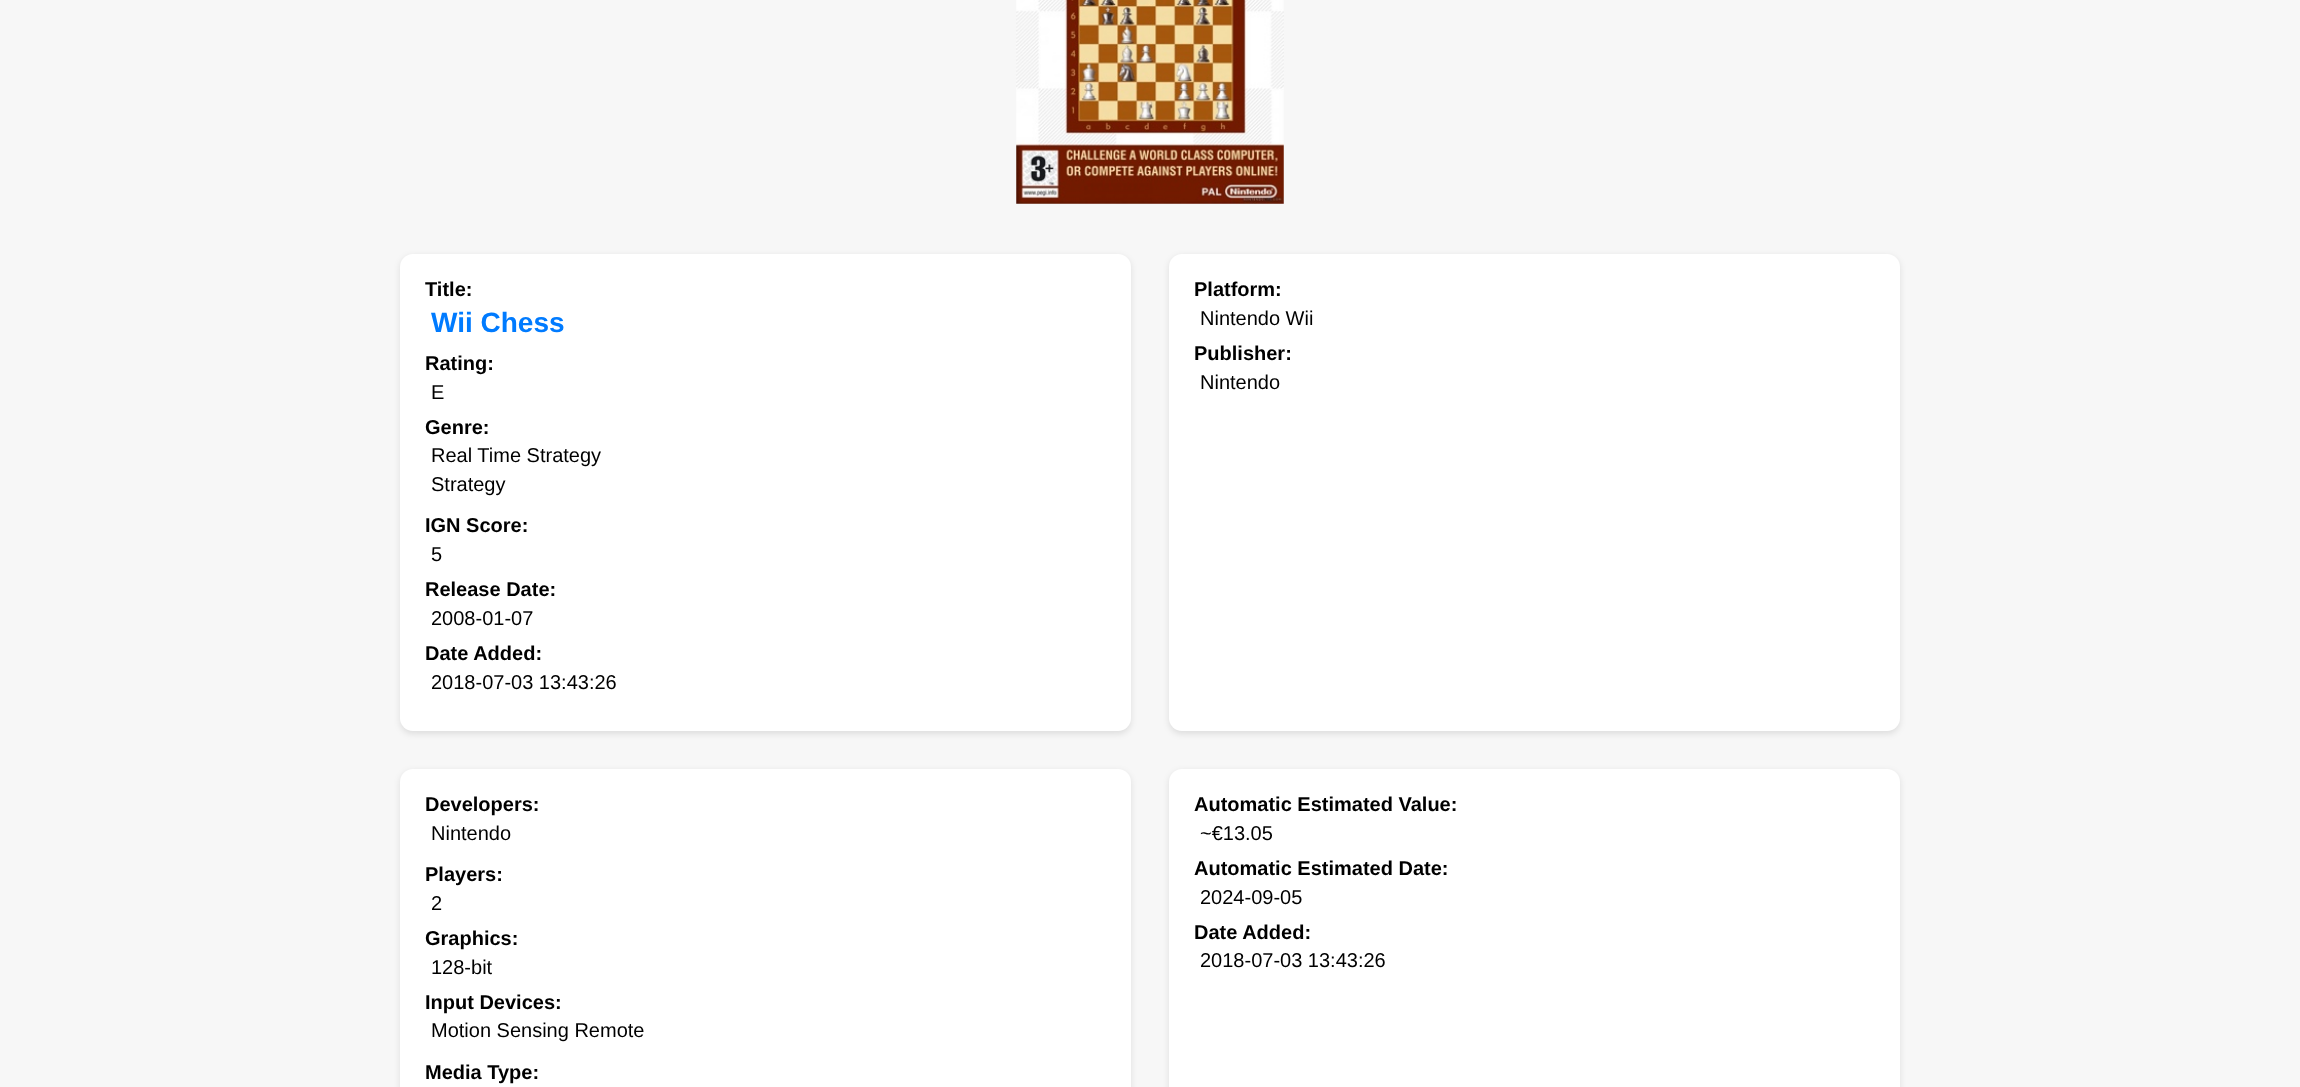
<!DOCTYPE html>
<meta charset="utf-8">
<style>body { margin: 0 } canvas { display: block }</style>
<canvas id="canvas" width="2300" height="1087"></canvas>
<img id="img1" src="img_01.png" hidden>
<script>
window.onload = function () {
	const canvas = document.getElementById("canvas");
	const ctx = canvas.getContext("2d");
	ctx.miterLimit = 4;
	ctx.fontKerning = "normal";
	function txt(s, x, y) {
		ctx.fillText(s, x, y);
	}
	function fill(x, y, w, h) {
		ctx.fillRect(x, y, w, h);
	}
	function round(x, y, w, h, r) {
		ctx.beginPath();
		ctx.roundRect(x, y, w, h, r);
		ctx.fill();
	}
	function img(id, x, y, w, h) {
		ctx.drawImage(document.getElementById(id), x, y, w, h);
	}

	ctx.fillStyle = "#F7F7F7";
	fill(0, 0, 2300, 1087);
	img("img1", 1016, 0, 268, 204);
	ctx.fillStyle = "rgba(0, 0, 0, 0.1)";
	ctx.filter = "blur(3px)";
	ctx.beginPath();
	ctx.roundRect(400, 256, 731, 478, 13);
	ctx.fill();
	ctx.filter = "none";
	ctx.fillStyle = "#FFFFFF";
	round(400, 254, 731, 477, 13);
	ctx.fillStyle = "rgba(0, 0, 0, 0.1)";
	ctx.filter = "blur(3px)";
	ctx.beginPath();
	ctx.roundRect(1169, 256, 731, 478, 13);
	ctx.fill();
	ctx.filter = "none";
	ctx.fillStyle = "#FFFFFF";
	round(1169, 254, 731, 477, 13);
	ctx.fillStyle = "rgba(0, 0, 0, 0.1)";
	ctx.filter = "blur(3px)";
	ctx.beginPath();
	ctx.roundRect(400, 771, 731, 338, 13);
	ctx.fill();
	ctx.filter = "none";
	ctx.fillStyle = "#FFFFFF";
	round(400, 769, 731, 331, 13);
	ctx.fillStyle = "rgba(0, 0, 0, 0.1)";
	ctx.filter = "blur(3px)";
	ctx.beginPath();
	ctx.roundRect(1169, 771, 731, 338, 13);
	ctx.fill();
	ctx.filter = "none";
	ctx.fillStyle = "#FFFFFF";
	round(1169, 769, 731, 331, 13);
	ctx.font = "bold 20px Liberation Sans";
	ctx.fillStyle = "#000000";
	txt("Title:", 425, 296);
	ctx.font = "bold 28px Liberation Sans";
	ctx.fillStyle = "#007BFF";
	txt("Wii Chess", 431, 332);
	ctx.font = "bold 20px Liberation Sans";
	ctx.fillStyle = "#000000";
	txt("Rating:", 425, 370);
	ctx.font = "20px Liberation Sans";
	txt("E", 431, 399);
	ctx.font = "bold 20px Liberation Sans";
	txt("Genre:", 425, 434);
	ctx.font = "20px Liberation Sans";
	txt("Real Time Strategy", 431, 462);
	txt("Strategy", 431, 491);
	ctx.font = "bold 20px Liberation Sans";
	txt("IGN Score:", 425, 532);
	ctx.font = "20px Liberation Sans";
	txt("5", 431, 561);
	ctx.font = "bold 20px Liberation Sans";
	txt("Release Date:", 425, 596);
	ctx.font = "20px Liberation Sans";
	txt("2008-01-07", 431, 625);
	ctx.font = "bold 20px Liberation Sans";
	txt("Date Added:", 425, 660);
	ctx.font = "20px Liberation Sans";
	txt("2018-07-03 13:43:26", 431, 689);
	ctx.font = "bold 20px Liberation Sans";
	txt("Platform:", 1194, 296);
	ctx.font = "20px Liberation Sans";
	txt("Nintendo Wii", 1200, 325);
	ctx.font = "bold 20px Liberation Sans";
	txt("Publisher:", 1194, 360);
	ctx.font = "20px Liberation Sans";
	txt("Nintendo", 1200, 389);
	ctx.font = "bold 20px Liberation Sans";
	txt("Developers:", 425, 811);
	ctx.font = "20px Liberation Sans";
	txt("Nintendo", 431, 840);
	ctx.font = "bold 20px Liberation Sans";
	txt("Players:", 425, 881);
	ctx.font = "20px Liberation Sans";
	txt("2", 431, 910);
	ctx.font = "bold 20px Liberation Sans";
	txt("Graphics:", 425, 945);
	ctx.font = "20px Liberation Sans";
	txt("128-bit", 431, 974);
	ctx.font = "bold 20px Liberation Sans";
	txt("Input Devices:", 425, 1009);
	ctx.font = "20px Liberation Sans";
	txt("Motion Sensing Remote", 431, 1037);
	ctx.font = "bold 20px Liberation Sans";
	txt("Media Type:", 425, 1079);
	txt("Automatic Estimated Value:", 1194, 811);
	ctx.font = "20px Liberation Sans";
	txt("~€13.05", 1200, 840);
	ctx.font = "bold 20px Liberation Sans";
	txt("Automatic Estimated Date:", 1194, 875);
	ctx.font = "20px Liberation Sans";
	txt("2024-09-05", 1200, 904);
	ctx.font = "bold 20px Liberation Sans";
	txt("Date Added:", 1194, 939);
	ctx.font = "20px Liberation Sans";
	txt("2018-07-03 13:43:26", 1200, 967);
};
</script>
